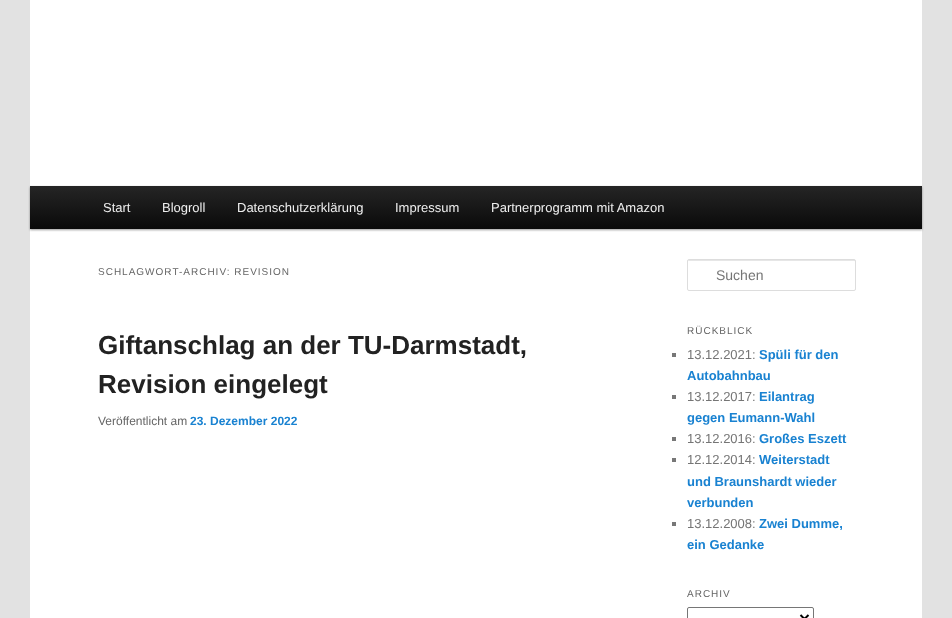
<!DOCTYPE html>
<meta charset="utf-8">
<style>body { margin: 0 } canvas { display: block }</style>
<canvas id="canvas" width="952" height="618"></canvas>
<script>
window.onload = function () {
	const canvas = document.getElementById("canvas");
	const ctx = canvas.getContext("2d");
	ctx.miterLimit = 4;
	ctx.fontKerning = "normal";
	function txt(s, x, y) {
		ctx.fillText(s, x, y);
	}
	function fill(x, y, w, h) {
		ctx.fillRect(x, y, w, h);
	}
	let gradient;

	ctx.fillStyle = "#E2E2E2";
	fill(0, 0, 952, 618);
	ctx.fillStyle = "#FFFFFF";
	fill(30, 0, 892, 618);
	ctx.fillStyle = "rgba(0, 0, 0, 0.4)";
	ctx.filter = "blur(1px)";
	ctx.beginPath();
	ctx.rect(30, 187, 892, 43);
	ctx.fill();
	ctx.filter = "none";
	gradient = ctx.createLinearGradient(476, 186, 476, 229);
	gradient.addColorStop(0, "#252525");
	gradient.addColorStop(1, "#0A0A0A");
	ctx.fillStyle = gradient;
	fill(30, 186, 892, 43);
	ctx.fillStyle = "#E6E6E6";
	ctx.beginPath();
	ctx.moveTo(689, 261);
	ctx.lineTo(854, 261);
	ctx.bezierCurveTo(855, 261, 855, 261, 855, 262);
	ctx.lineTo(855, 260);
	ctx.lineTo(689, 260);
	ctx.bezierCurveTo(688, 260, 688, 261, 688, 262);
	ctx.bezierCurveTo(688, 261, 688, 261, 689, 261);
	ctx.closePath();
	ctx.fill();
	ctx.beginPath();
	ctx.roundRect(687.5, 259.5, 168, 31, 1.5);
	ctx.strokeStyle = "#DDDDDD";
	ctx.stroke();
	ctx.fillStyle = "#777777";
	fill(672, 353, 4, 4);
	fill(672, 395, 4, 4);
	fill(672, 437, 4, 4);
	fill(672, 458, 4, 4);
	fill(672, 522, 4, 4);
	ctx.beginPath();
	ctx.roundRect(687.5, 607.5, 126, 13, 1.5);
	ctx.strokeStyle = "#767676";
	ctx.stroke();
	ctx.beginPath();
	ctx.moveTo(800.5, 615);
	ctx.lineTo(804.5, 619);
	ctx.lineTo(808.5, 615);
	ctx.strokeStyle = "#000000";
	ctx.lineWidth = 2;
	ctx.stroke();
	ctx.font = "13px Liberation Sans";
	ctx.fillStyle = "#EEEEEE";
	txt("Start", 103, 212);
	txt("Blogroll", 162, 212);
	txt("Datenschutzerklärung", 237, 212);
	txt("Impressum", 395, 212);
	txt("Partnerprogramm mit Amazon", 491, 212);
	ctx.letterSpacing = "1px";
	ctx.font = "10px Liberation Sans";
	ctx.fillStyle = "#666666";
	txt("SCHLAGWORT-ARCHIV: REVISION", 98, 275);
	ctx.letterSpacing = "0px";
	ctx.font = "bold 26px Liberation Sans";
	ctx.fillStyle = "#222222";
	txt("Giftanschlag an der TU-Darmstadt,", 98, 354);
	txt("Revision eingelegt", 98, 393);
	ctx.font = "12px Liberation Sans";
	ctx.fillStyle = "#666666";
	txt("Veröffentlicht am", 98, 425);
	ctx.font = "bold 12px Liberation Sans";
	ctx.fillStyle = "#1982D1";
	txt("23. Dezember 2022", 190, 425);
	ctx.font = "14px Liberation Sans";
	ctx.fillStyle = "#757575";
	txt("Suchen", 716, 280);
	ctx.letterSpacing = "1px";
	ctx.font = "10px Liberation Sans";
	ctx.fillStyle = "#666666";
	txt("RÜCKBLICK", 687, 334);
	ctx.letterSpacing = "0px";
	ctx.font = "13px Liberation Sans";
	ctx.fillStyle = "#757575";
	txt("13.12.2021:", 687, 359);
	ctx.font = "bold 13px Liberation Sans";
	ctx.fillStyle = "#1982D1";
	txt("Spüli für den", 759, 359);
	txt("Autobahnbau", 687, 380);
	ctx.font = "13px Liberation Sans";
	ctx.fillStyle = "#757575";
	txt("13.12.2017:", 687, 401);
	ctx.font = "bold 13px Liberation Sans";
	ctx.fillStyle = "#1982D1";
	txt("Eilantrag", 759, 401);
	txt("gegen Eumann-Wahl", 687, 422);
	ctx.font = "13px Liberation Sans";
	ctx.fillStyle = "#757575";
	txt("13.12.2016:", 687, 443);
	ctx.font = "bold 13px Liberation Sans";
	ctx.fillStyle = "#1982D1";
	txt("Großes Eszett", 759, 443);
	ctx.font = "13px Liberation Sans";
	ctx.fillStyle = "#757575";
	txt("12.12.2014:", 687, 464);
	ctx.font = "bold 13px Liberation Sans";
	ctx.fillStyle = "#1982D1";
	txt("Weiterstadt", 759, 464);
	txt("und Braunshardt wieder", 687, 486);
	txt("verbunden", 687, 507);
	ctx.font = "13px Liberation Sans";
	ctx.fillStyle = "#757575";
	txt("13.12.2008:", 687, 528);
	ctx.font = "bold 13px Liberation Sans";
	ctx.fillStyle = "#1982D1";
	txt("Zwei Dumme,", 759, 528);
	txt("ein Gedanke", 687, 549);
	ctx.letterSpacing = "1px";
	ctx.font = "10px Liberation Sans";
	ctx.fillStyle = "#666666";
	txt("ARCHIV", 687, 597);
};
</script>
